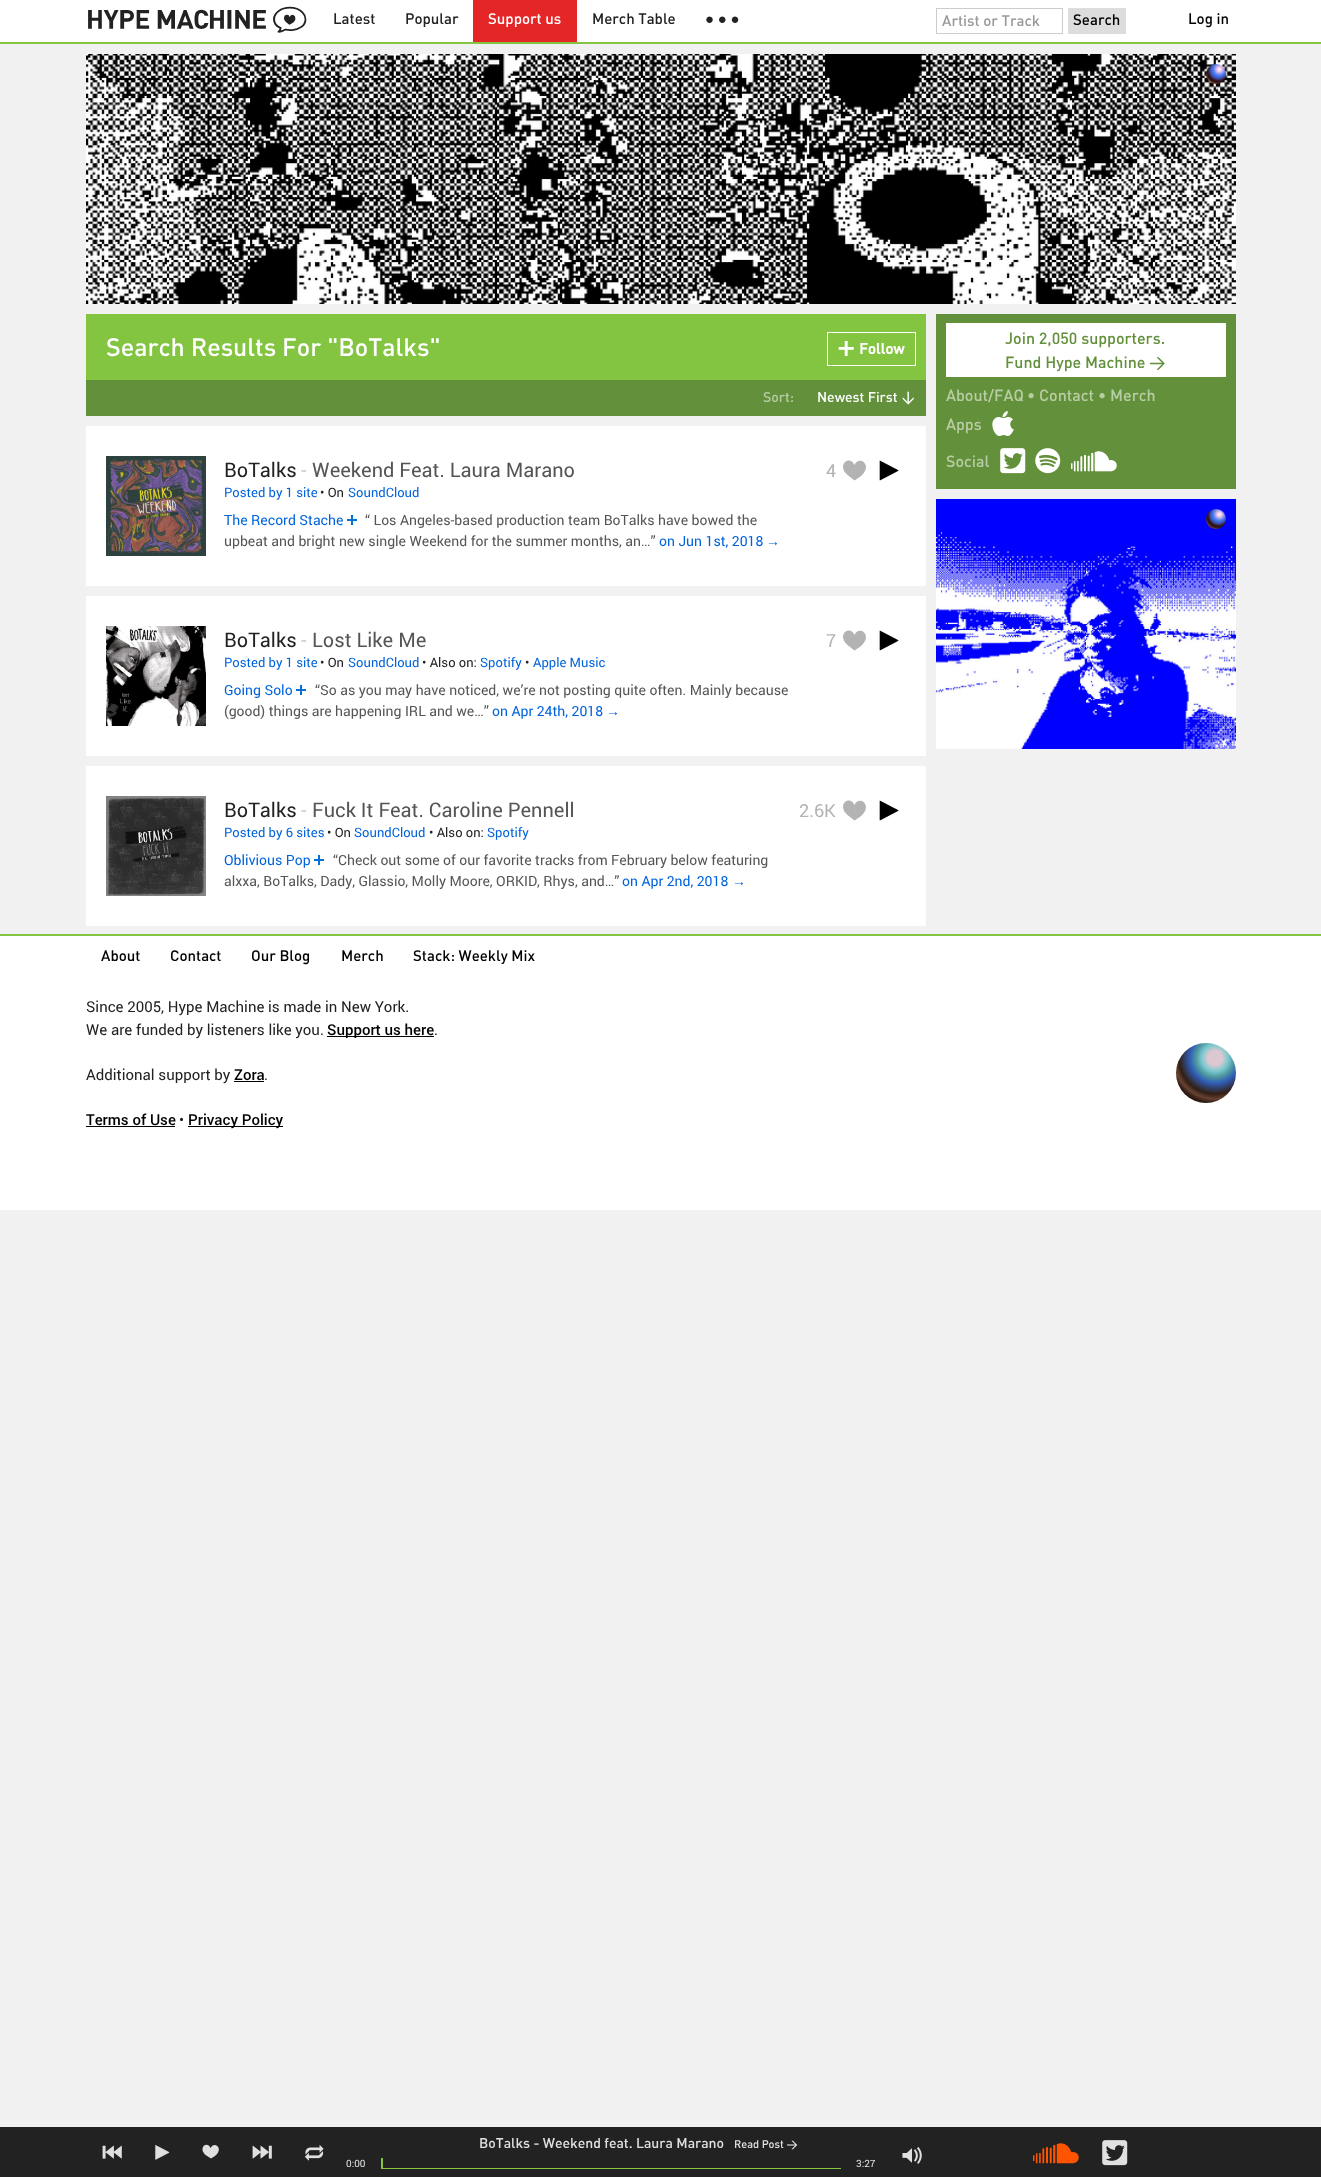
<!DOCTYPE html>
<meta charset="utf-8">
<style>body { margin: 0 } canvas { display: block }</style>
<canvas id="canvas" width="1321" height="2177"></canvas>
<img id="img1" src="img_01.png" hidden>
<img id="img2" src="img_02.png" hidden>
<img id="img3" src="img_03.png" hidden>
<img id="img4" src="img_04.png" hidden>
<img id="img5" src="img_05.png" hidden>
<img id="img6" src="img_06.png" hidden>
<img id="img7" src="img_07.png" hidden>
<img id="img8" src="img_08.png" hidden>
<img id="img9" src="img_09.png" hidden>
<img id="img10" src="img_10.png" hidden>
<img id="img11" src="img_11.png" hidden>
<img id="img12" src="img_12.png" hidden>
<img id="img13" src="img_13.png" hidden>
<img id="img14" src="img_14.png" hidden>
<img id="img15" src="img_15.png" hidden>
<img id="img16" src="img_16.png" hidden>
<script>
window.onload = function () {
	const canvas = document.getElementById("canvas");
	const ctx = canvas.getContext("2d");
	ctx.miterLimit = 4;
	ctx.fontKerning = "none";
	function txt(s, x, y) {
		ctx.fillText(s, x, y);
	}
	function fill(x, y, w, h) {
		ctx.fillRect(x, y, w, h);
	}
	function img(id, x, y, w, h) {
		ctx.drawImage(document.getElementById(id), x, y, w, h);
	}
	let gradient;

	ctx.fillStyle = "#F1F1F1";
	fill(0, 0, 1321, 2177);
	ctx.fillStyle = "#FFFFFF";
	fill(0, 0, 1321, 42);
	ctx.fillStyle = "#83C441";
	fill(0, 42, 1321, 2);
	ctx.fillStyle = "#E42626";
	fill(473, 0, 104, 42);
	ctx.strokeStyle = "#CCCCCC";
	ctx.strokeRect(936.5, 8.5, 126, 25);
	ctx.fillStyle = "#DDDDDD";
	fill(1068, 8, 58, 26);
	img("img1", 86, 54, 1150, 250);
	ctx.fillStyle = "#83C441";
	fill(86, 314, 840, 66);
	ctx.strokeStyle = "#FFFFFF";
	ctx.strokeRect(827.5, 332.5, 88, 33);
	ctx.fillStyle = "#63903A";
	fill(936, 314, 300, 175);
	ctx.fillStyle = "#FFFFFF";
	fill(946, 323, 280, 54);
	img("img2", 992, 411, 22, 26);
	img("img3", 1000, 448, 26, 26);
	img("img4", 1035, 448, 26, 26);
	img("img5", 936, 499, 300, 250);
	ctx.fillStyle = "#63903A";
	fill(86, 380, 840, 36);
	ctx.fillStyle = "#FFFFFF";
	fill(86, 426, 840, 160);
	img("img6", 106, 456, 100, 100);
	ctx.fillStyle = "#B3B3B3";
	ctx.beginPath();
	ctx.moveTo(854.5, 465);
	ctx.bezierCurveTo(859, 454.5, 874, 465.5, 860.5, 476.5);
	ctx.lineTo(854.5, 480.5);
	ctx.lineTo(847.5, 475);
	ctx.bezierCurveTo(836, 464.5, 850, 454.5, 854.5, 465);
	ctx.closePath();
	ctx.fill();
	img("img7", 879, 460, 20, 21);
	img("img8", 347, 515, 10, 10);
	ctx.fillStyle = "#FFFFFF";
	fill(86, 596, 840, 160);
	img("img9", 106, 626, 100, 100);
	ctx.fillStyle = "#B3B3B3";
	ctx.beginPath();
	ctx.moveTo(854.5, 635);
	ctx.bezierCurveTo(859, 624.5, 874, 635.5, 860.5, 646.5);
	ctx.lineTo(854.5, 650.5);
	ctx.lineTo(847.5, 645);
	ctx.bezierCurveTo(836, 634.5, 850, 624.5, 854.5, 635);
	ctx.closePath();
	ctx.fill();
	img("img7", 879, 630, 20, 21);
	img("img8", 296, 685, 10, 10);
	ctx.fillStyle = "#FFFFFF";
	fill(86, 766, 840, 160);
	img("img10", 106, 796, 100, 100);
	ctx.fillStyle = "#B3B3B3";
	ctx.beginPath();
	ctx.moveTo(854.5, 805);
	ctx.bezierCurveTo(859, 794.5, 874, 805.5, 860.5, 816.5);
	ctx.lineTo(854.5, 820.5);
	ctx.lineTo(847.5, 815);
	ctx.bezierCurveTo(836, 804.5, 850, 794.5, 854.5, 805);
	ctx.closePath();
	ctx.fill();
	img("img7", 879, 800, 20, 21);
	img("img8", 314, 855, 10, 10);
	ctx.fillStyle = "#FFFFFF";
	fill(0, 936, 1321, 274);
	ctx.fillStyle = "#83C441";
	fill(0, 934, 1321, 2);
	ctx.fillStyle = "#000000";
	fill(327, 1036, 107, 1);
	fill(234, 1081, 30, 1);
	gradient = ctx.createRadialGradient(1215, 1058, 0, 1215, 1058, 45);
	gradient.addColorStop(0.16, "#DCC8D0");
	gradient.addColorStop(0.3, "#78C8CF");
	gradient.addColorStop(0.43, "#4D959E");
	gradient.addColorStop(0.56, "#305EB9");
	gradient.addColorStop(0.8, "#311F12");
	gradient.addColorStop(0.91, "#684232");
	gradient.addColorStop(1, "#2D1C13");
	ctx.fillStyle = gradient;
	ctx.beginPath();
	ctx.arc(1206, 1073, 30, 0, Math.PI * 2);
	ctx.fill();
	ctx.fillStyle = "#000000";
	fill(86, 1126, 89, 1);
	fill(188, 1126, 95, 1);
	ctx.fillStyle = "#222222";
	fill(0, 2127, 1321, 50);
	img("img11", 102, 2145, 20, 14);
	img("img12", 155, 2145, 15, 15);
	ctx.fillStyle = "#E0E0E0";
	ctx.beginPath();
	ctx.moveTo(210.5, 2148);
	ctx.bezierCurveTo(214, 2140.5, 224.5, 2148, 215, 2156);
	ctx.lineTo(211, 2158.5);
	ctx.lineTo(205.5, 2155);
	ctx.bezierCurveTo(197.5, 2147.5, 207.5, 2140.5, 210.5, 2148);
	ctx.closePath();
	ctx.fill();
	img("img13", 252, 2145, 20, 14);
	img("img14", 304, 2144, 20, 17);
	img("img15", 1102, 2140, 26, 26);
	ctx.fillStyle = "#83C441";
	fill(381, 2168, 460, 1);
	fill(381, 2158, 2, 10);
	img("img16", 902, 2147, 20, 17);
	ctx.font = "38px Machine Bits";
	ctx.fillStyle = "#222222";
	txt("1", 86, 28);
	ctx.font = "500 15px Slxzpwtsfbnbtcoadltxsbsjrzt";
	txt("Latest", 333, 24);
	txt("Popular", 405, 24);
	ctx.fillStyle = "#FFFFFF";
	txt("Support us", 488, 24);
	ctx.fillStyle = "#222222";
	txt("Merch Table", 592, 24);
	ctx.font = "bold 15px Liberation Serif";
	txt("● ● ●", 705, 24);
	ctx.font = "500 15px Slxzpwtsfbnbtcoadltxsbsjrzt";
	ctx.fillStyle = "#999999";
	txt("Artist or Track", 942, 26);
	ctx.fillStyle = "#000000";
	txt("Search", 1073, 25);
	txt("Log in", 1188, 24);
	ctx.font = "500 25px Slxzpwtsfbnbtcoadltxsbsjrzt";
	ctx.fillStyle = "#FFFFFF";
	txt("Search Results For \"BoTalks\"", 106, 356);
	ctx.font = "15px Machine Bits";
	txt("+", 838, 354);
	ctx.font = "bold 15px Slxzpwtsfbnbtcoadltxsbsjrzt";
	txt("Follow", 859, 354);
	ctx.font = "500 16px Slxzpwtsfbnbtcoadltxsbsjrzt";
	ctx.fillStyle = "#63903A";
	txt("Join 2,050 supporters.", 1005, 344);
	txt("Fund Hype Machine →", 1005, 368);
	ctx.save();
	ctx.beginPath();
	ctx.rect(946, 389, 280, 16);
	ctx.clip();
	ctx.fillStyle = "#B9CDA5";
	txt("About/FAQ", 946, 401);
	ctx.restore();
	ctx.fillStyle = "#B9CDA5";
	txt("•", 1027, 401);
	txt("Contact", 1039, 401);
	txt("•", 1098, 401);
	txt("Merch", 1110, 401);
	txt("Apps", 946, 430);
	txt("Social", 946, 467);
	ctx.font = "20px Machine Bits";
	ctx.fillStyle = "#FFFFFF";
	txt("9", 1070, 469);
	ctx.font = "500 14px Slxzpwtsfbnbtcoadltxsbsjrzt";
	ctx.fillStyle = "#B9CDA5";
	txt("Sort:", 763, 402);
	ctx.fillStyle = "#FFFFFF";
	txt("Newest First ↓", 817, 402);
	ctx.font = "20px Roboto";
	ctx.fillStyle = "#222222";
	txt("BoTalks", 224, 477);
	ctx.fillStyle = "#CCCCCC";
	txt("-", 301, 477);
	ctx.fillStyle = "#555555";
	txt("Weekend Feat. Laura Marano", 312, 477);
	ctx.font = "18px Roboto";
	ctx.fillStyle = "#B3B3B3";
	txt("4", 826, 477);
	ctx.font = "13px Roboto";
	ctx.fillStyle = "#0063DC";
	txt("Posted by 1 site", 224, 497);
	ctx.fillStyle = "#222222";
	txt("• On", 320, 497);
	ctx.fillStyle = "#0063DC";
	txt("SoundCloud", 348, 497);
	ctx.font = "14px Roboto";
	txt("The Record Stache", 224, 525);
	ctx.fillStyle = "#555555";
	txt("“ Los Angeles-based production team BoTalks have bowed the", 365, 525);
	txt("upbeat and bright new single Weekend for the summer months, an…”", 224, 546);
	ctx.fillStyle = "#0063DC";
	txt("on Jun 1st, 2018", 659, 546);
	ctx.font = "14px Liberation Sans";
	txt("→", 766, 546);
	ctx.font = "20px Roboto";
	ctx.fillStyle = "#222222";
	txt("BoTalks", 224, 647);
	ctx.fillStyle = "#CCCCCC";
	txt("-", 301, 647);
	ctx.fillStyle = "#555555";
	txt("Lost Like Me", 312, 647);
	ctx.font = "18px Roboto";
	ctx.fillStyle = "#B3B3B3";
	txt("7", 826, 647);
	ctx.font = "13px Roboto";
	ctx.fillStyle = "#0063DC";
	txt("Posted by 1 site", 224, 667);
	ctx.fillStyle = "#222222";
	txt("• On", 320, 667);
	ctx.fillStyle = "#0063DC";
	txt("SoundCloud", 348, 667);
	ctx.fillStyle = "#222222";
	txt("• Also on:", 422, 667);
	ctx.fillStyle = "#0063DC";
	txt("Spotify", 480, 667);
	ctx.fillStyle = "#222222";
	txt("•", 525, 667);
	ctx.fillStyle = "#0063DC";
	txt("Apple Music", 533, 667);
	ctx.font = "14px Roboto";
	txt("Going Solo", 224, 695);
	ctx.fillStyle = "#555555";
	txt("“So as you may have noticed, we’re not posting quite often. Mainly because", 315, 695);
	txt("(good) things are happening IRL and we…”", 224, 716);
	ctx.fillStyle = "#0063DC";
	txt("on Apr 24th, 2018", 492, 716);
	ctx.font = "14px Liberation Sans";
	txt("→", 606, 716);
	ctx.font = "20px Roboto";
	ctx.fillStyle = "#222222";
	txt("BoTalks", 224, 817);
	ctx.fillStyle = "#CCCCCC";
	txt("-", 301, 817);
	ctx.fillStyle = "#555555";
	txt("Fuck It Feat. Caroline Pennell", 312, 817);
	ctx.font = "18px Roboto";
	ctx.fillStyle = "#B3B3B3";
	txt("2.6K", 799, 817);
	ctx.font = "13px Roboto";
	ctx.fillStyle = "#0063DC";
	txt("Posted by 6 sites", 224, 837);
	ctx.fillStyle = "#222222";
	txt("• On", 327, 837);
	ctx.fillStyle = "#0063DC";
	txt("SoundCloud", 354, 837);
	ctx.fillStyle = "#222222";
	txt("• Also on:", 429, 837);
	ctx.fillStyle = "#0063DC";
	txt("Spotify", 487, 837);
	ctx.font = "14px Roboto";
	txt("Oblivious Pop", 224, 865);
	ctx.fillStyle = "#555555";
	txt("“Check out some of our favorite tracks from February below featuring", 333, 865);
	txt("alxxa, BoTalks, Dady, Glassio, Molly Moore, ORKID, Rhys, and…”", 224, 886);
	ctx.fillStyle = "#0063DC";
	txt("on Apr 2nd, 2018", 622, 886);
	ctx.font = "14px Liberation Sans";
	txt("→", 732, 886);
	ctx.font = "500 15px Slxzpwtsfbnbtcoadltxsbsjrzt";
	ctx.fillStyle = "#000000";
	txt("About", 101, 961);
	txt("Contact", 170, 961);
	txt("Our Blog", 251, 961);
	txt("Merch", 341, 961);
	txt("Stack: Weekly Mix", 413, 961);
	ctx.font = "15px Roboto";
	ctx.fillStyle = "#222222";
	txt("Since 2005, Hype Machine is made in New York.", 86, 1012);
	txt("We are funded by listeners like you.", 86, 1035);
	ctx.font = "500 15px Roboto";
	ctx.fillStyle = "#000000";
	txt("Support us here", 327, 1035);
	ctx.font = "15px Roboto";
	ctx.fillStyle = "#222222";
	txt(".", 434, 1035);
	txt("Additional support by", 86, 1080);
	ctx.font = "500 15px Roboto";
	ctx.fillStyle = "#000000";
	txt("Zora", 234, 1080);
	ctx.font = "15px Roboto";
	ctx.fillStyle = "#222222";
	txt(".", 264, 1080);
	ctx.font = "500 15px Roboto";
	ctx.fillStyle = "#000000";
	txt("Terms of Use", 86, 1125);
	ctx.font = "15px Roboto";
	ctx.fillStyle = "#222222";
	txt("•", 179, 1125);
	ctx.font = "500 15px Roboto";
	ctx.fillStyle = "#000000";
	txt("Privacy Policy", 188, 1125);
	ctx.font = "500 14px Slxzpwtsfbnbtcoadltxsbsjrzt";
	ctx.fillStyle = "#E0E0E0";
	txt("BoTalks - Weekend feat. Laura Marano", 479, 2148);
	ctx.font = "500 11px Slxzpwtsfbnbtcoadltxsbsjrzt";
	txt("Read Post →", 734, 2148);
	ctx.font = "20px Machine Bits";
	ctx.fillStyle = "#FF5500";
	txt("9", 1032, 2161);
	ctx.font = "10px Roboto";
	ctx.fillStyle = "#E0E0E0";
	txt("0:00", 346, 2167);
	txt("3:27", 856, 2167);
};
</script>
